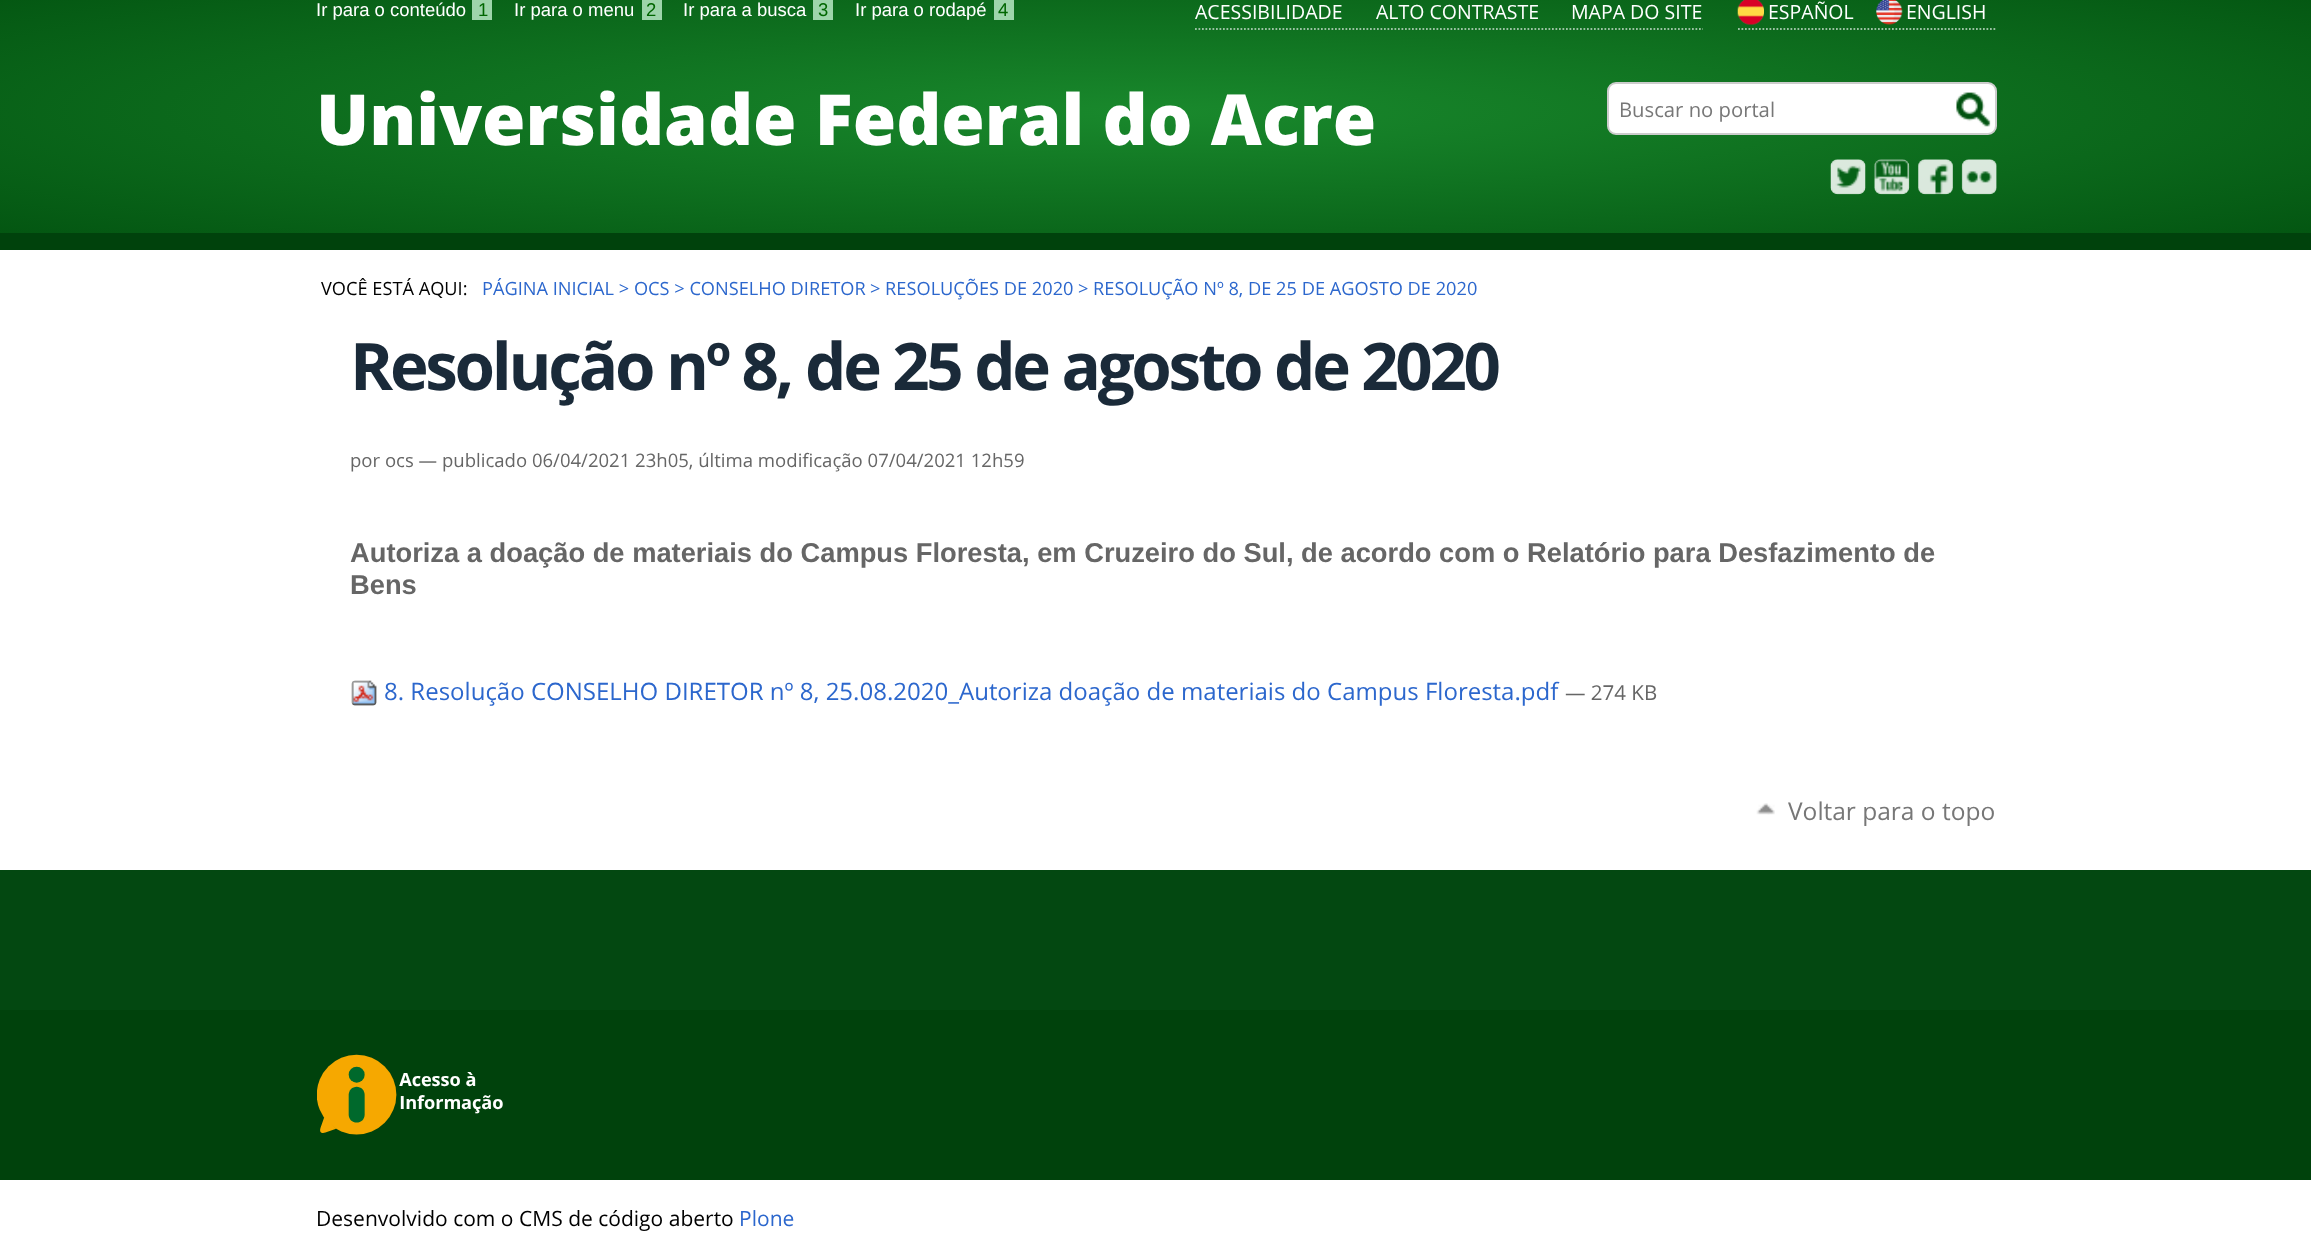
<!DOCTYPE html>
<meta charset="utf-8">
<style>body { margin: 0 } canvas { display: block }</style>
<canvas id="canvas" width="2311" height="1257"></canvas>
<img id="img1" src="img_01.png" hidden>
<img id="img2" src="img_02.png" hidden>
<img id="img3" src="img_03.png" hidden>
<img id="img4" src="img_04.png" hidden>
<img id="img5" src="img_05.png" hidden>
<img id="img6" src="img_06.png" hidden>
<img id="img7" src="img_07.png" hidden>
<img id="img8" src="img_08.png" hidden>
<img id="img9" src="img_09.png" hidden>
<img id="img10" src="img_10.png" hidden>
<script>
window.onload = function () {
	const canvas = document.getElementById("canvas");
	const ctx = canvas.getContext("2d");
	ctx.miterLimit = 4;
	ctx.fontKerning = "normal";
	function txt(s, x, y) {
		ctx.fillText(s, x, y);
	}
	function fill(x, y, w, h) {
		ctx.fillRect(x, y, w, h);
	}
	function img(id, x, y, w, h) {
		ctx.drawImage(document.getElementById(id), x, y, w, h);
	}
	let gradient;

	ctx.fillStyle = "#FFFFFF";
	fill(0, 0, 2311, 1257);
	gradient = ctx.createRadialGradient(1156, 934.29, 0, 1156, 934.29, 1635);
	gradient.addColorStop(0.01, "#19882C");
	gradient.addColorStop(1, "#025310");
	ctx.fillStyle = gradient;
	ctx.beginPath();
	ctx.rect(0, 0, 2311, 233);
	ctx.save();
	ctx.clip();
	ctx.scale(1, 196 / 1635);
	ctx.fillRect(0, 0, 2311, 10486);
	ctx.restore();
	ctx.fillStyle = "#9ED5AB";
	fill(472, 0, 20, 20);
	fill(642, 0, 20, 20);
	fill(813, 0, 20, 20);
	fill(994, 0, 20, 20);
	ctx.beginPath();
	ctx.moveTo(1195, 29);
	ctx.lineTo(1703, 29);
	ctx.strokeStyle = "#9BC2A3";
	ctx.lineWidth = 1.8;
	ctx.setLineDash([1.75, 1.75]);
	ctx.stroke();
	ctx.beginPath();
	ctx.moveTo(1738, 29);
	ctx.lineTo(1997, 29);
	ctx.stroke();
	img("img1", 1737, 0, 27, 25);
	img("img2", 1876, 0, 27, 25);
	ctx.fillStyle = "#FFFFFF";
	ctx.beginPath();
	ctx.roundRect(1608, 83, 388, 51, 8);
	ctx.fill();
	ctx.strokeStyle = "#CCCCCC";
	ctx.lineWidth = 2;
	ctx.setLineDash([]);
	ctx.stroke();
	img("img3", 1956, 92, 35, 35);
	img("img4", 1830, 159, 36, 36);
	img("img5", 1874, 159, 36, 36);
	img("img6", 1918, 159, 35, 36);
	img("img7", 1961, 159, 36, 36);
	ctx.fillStyle = "#00420C";
	fill(0, 233, 2311, 17);
	img("img8", 351, 680, 26, 26);
	img("img9", 1756, 803, 19, 12);
	ctx.fillStyle = "#034811";
	fill(0, 870, 2311, 140);
	ctx.fillStyle = "#00420C";
	fill(0, 1010, 2311, 170);
	img("img10", 317, 1054, 186, 81);
	ctx.font = "18.5px Liberation Sans";
	ctx.fillStyle = "#FFFFFF";
	txt("Ir para o conteúdo", 316, 16);
	ctx.fillStyle = "#006600";
	txt("1", 478, 16);
	ctx.fillStyle = "#FFFFFF";
	txt("Ir para o menu", 514, 16);
	ctx.fillStyle = "#006600";
	txt("2", 646, 16);
	ctx.fillStyle = "#FFFFFF";
	txt("Ir para a busca", 683, 16);
	ctx.fillStyle = "#006600";
	txt("3", 818, 16);
	ctx.fillStyle = "#FFFFFF";
	txt("Ir para o rodapé", 855, 16);
	ctx.fillStyle = "#006600";
	txt("4", 998, 16);
	ctx.font = "19.5px Open Sans";
	ctx.fillStyle = "#FFFFFF";
	txt("ACESSIBILIDADE", 1195, 19);
	txt("ALTO CONTRASTE", 1376, 19);
	txt("MAPA DO SITE", 1571, 19);
	txt("ESPAÑOL", 1768, 19);
	txt("ENGLISH", 1906, 19);
	ctx.font = "800 70.3px Open Sans";
	txt("Universidade Federal do Acre", 316, 145);
	ctx.font = "20.25px Open Sans";
	ctx.fillStyle = "#777777";
	txt("Buscar no portal", 1619, 117);
	ctx.font = "18.2px Open Sans";
	ctx.fillStyle = "#000000";
	txt("VOCÊ ESTÁ AQUI:", 321, 295);
	ctx.fillStyle = "#2C67CD";
	txt("PÁGINA INICIAL > OCS > CONSELHO DIRETOR", 482, 295);
	txt("> RESOLUÇÕES DE 2020", 870, 295);
	txt("> RESOLUÇÃO Nº 8, DE 25 DE AGOSTO DE 2020", 1078, 295);
	ctx.letterSpacing = "-3.3px";
	ctx.font = "bold 65.5px Open Sans";
	ctx.fillStyle = "#1A2A39";
	txt("Resolução nº 8, de 25 de agosto de 2020", 350, 390);
	ctx.letterSpacing = "0px";
	ctx.font = "18.55px Open Sans";
	ctx.fillStyle = "#666666";
	txt("por ocs — publicado 06/04/2021 23h05, última modificação 07/04/2021 12h59", 350, 467);
	ctx.font = "bold 27.3px Liberation Sans";
	txt("Autoriza a doação de materiais do Campus Floresta, em Cruzeiro do Sul, de acordo com o Relatório para Desfazimento de", 350, 562);
	txt("Bens", 350, 594);
	ctx.font = "24px Open Sans";
	ctx.fillStyle = "#2C67CD";
	txt("8. Resolução CONSELHO DIRETOR nº 8, 25.08.2020_Autoriza doação de materiais do Campus Floresta.pdf", 384, 700);
	ctx.font = "20.5px Open Sans";
	ctx.fillStyle = "#666666";
	txt("— 274 KB", 1565, 700);
	ctx.font = "24.5px Open Sans";
	ctx.fillStyle = "#777777";
	txt("Voltar para o topo", 1788, 820);
	ctx.font = "21px Open Sans";
	ctx.fillStyle = "#000000";
	txt("Desenvolvido com o CMS de código aberto", 316, 1226);
	ctx.fillStyle = "#2C67CD";
	txt("Plone", 739, 1226);
};
</script>
